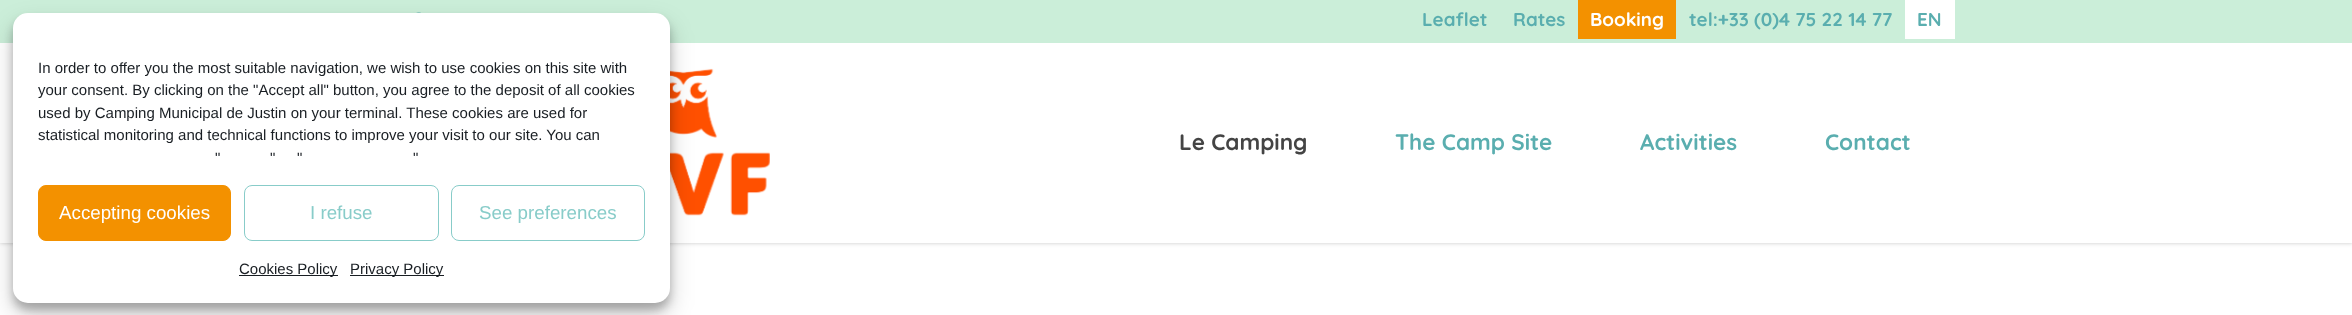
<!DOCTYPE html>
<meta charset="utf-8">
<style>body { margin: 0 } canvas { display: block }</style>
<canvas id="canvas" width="2352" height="315"></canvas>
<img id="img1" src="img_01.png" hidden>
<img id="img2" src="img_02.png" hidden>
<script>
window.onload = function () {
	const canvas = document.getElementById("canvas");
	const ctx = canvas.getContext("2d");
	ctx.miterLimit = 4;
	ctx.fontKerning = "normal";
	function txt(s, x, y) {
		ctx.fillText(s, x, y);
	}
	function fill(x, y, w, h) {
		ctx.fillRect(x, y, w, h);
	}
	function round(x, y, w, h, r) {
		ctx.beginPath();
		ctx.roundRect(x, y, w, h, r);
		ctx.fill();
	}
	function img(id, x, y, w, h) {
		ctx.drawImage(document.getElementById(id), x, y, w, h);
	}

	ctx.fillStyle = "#FFFFFF";
	fill(0, 0, 2352, 315);
	ctx.fillStyle = "rgba(0, 0, 0, 0.22)";
	ctx.filter = "blur(2px)";
	ctx.beginPath();
	ctx.rect(0, 0, 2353, 243);
	ctx.fill();
	ctx.filter = "none";
	ctx.fillStyle = "#FFFFFF";
	fill(0, 43, 2352, 200);
	ctx.fillStyle = "#CBEED9";
	fill(0, 0, 2352, 43);
	img("img1", 416, 12, 5, 1);
	img("img2", 670, 68, 100, 148);
	ctx.fillStyle = "rgba(0, 0, 0, 0.23)";
	ctx.filter = "blur(4px)";
	ctx.beginPath();
	ctx.roundRect(13, 20, 657, 290, 15);
	ctx.fill();
	ctx.filter = "none";
	ctx.fillStyle = "rgba(0, 0, 0, 0.19)";
	ctx.filter = "blur(12.5px)";
	ctx.beginPath();
	ctx.roundRect(13, 25, 657, 290, 15);
	ctx.fill();
	ctx.filter = "none";
	ctx.fillStyle = "#FFFFFF";
	round(13, 13, 657, 290, 15);
	ctx.fillStyle = "#F39100";
	ctx.beginPath();
	ctx.roundRect(38.5, 185.5, 192, 55, 7.5);
	ctx.fill();
	ctx.strokeStyle = "#F39100";
	ctx.stroke();
	ctx.beginPath();
	ctx.roundRect(244.5, 185.5, 194, 55, 7.5);
	ctx.strokeStyle = "#88CCC9";
	ctx.stroke();
	ctx.beginPath();
	ctx.roundRect(451.5, 185.5, 193, 55, 7.5);
	ctx.stroke();
	ctx.fillStyle = "#191E23";
	fill(239, 275, 99, 1);
	fill(350, 275, 94, 1);
	ctx.fillStyle = "#F39100";
	fill(1578, 0, 98, 39);
	ctx.fillStyle = "#FFFFFF";
	fill(1905, 0, 50, 39);
	ctx.font = "15px Liberation Sans";
	ctx.fillStyle = "#191E23";
	txt("In order to offer you the most suitable navigation, we wish to use cookies on this site with", 38, 73);
	txt("your consent. By clicking on the \"Accept all\" button, you agree to the deposit of all cookies", 38, 95);
	txt("used by Camping Municipal de Justin on your terminal. These cookies are used for", 38, 118);
	txt("statistical monitoring and technical functions to improve your visit to our site. You can", 38, 140);
	txt("\"", 215, 163);
	txt("\"", 270, 163);
	txt("\"", 297, 163);
	txt("\"", 413, 163);
	ctx.font = "18.75px Liberation Sans";
	ctx.fillStyle = "#FFFFFF";
	txt("Accepting cookies", 59, 219);
	ctx.fillStyle = "#88CCC9";
	txt("I refuse", 310, 219);
	txt("See preferences", 479, 219);
	ctx.font = "15px Liberation Sans";
	ctx.fillStyle = "#191E23";
	txt("Cookies Policy", 239, 274);
	txt("Privacy Policy", 350, 274);
	ctx.font = "bold 18.75px Quicksand";
	ctx.fillStyle = "#5AAEAF";
	txt("Leaflet", 1422, 26);
	txt("Rates", 1513, 26);
	ctx.fillStyle = "#FFFFFF";
	txt("Booking", 1590, 26);
	ctx.fillStyle = "#5AAEAF";
	txt("tel:+33 (0)4 75 22 14 77", 1689, 26);
	txt("EN", 1917, 26);
	ctx.font = "bold 22.5px Quicksand";
	ctx.fillStyle = "#444444";
	txt("Le Camping", 1179, 150);
	ctx.fillStyle = "#5AAEAF";
	txt("The Camp Site", 1395, 150);
	txt("Activities", 1640, 150);
	txt("Contact", 1825, 150);
};
</script>
